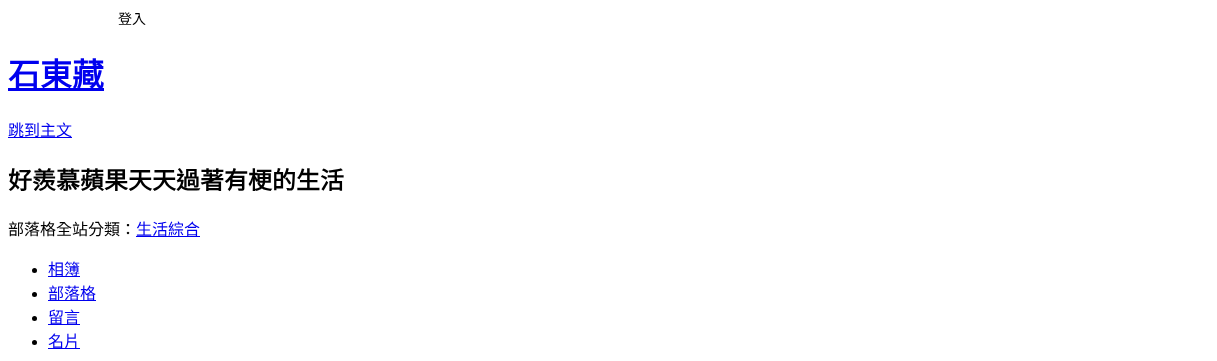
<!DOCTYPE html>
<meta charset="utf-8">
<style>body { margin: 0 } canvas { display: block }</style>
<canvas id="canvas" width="1217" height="361"></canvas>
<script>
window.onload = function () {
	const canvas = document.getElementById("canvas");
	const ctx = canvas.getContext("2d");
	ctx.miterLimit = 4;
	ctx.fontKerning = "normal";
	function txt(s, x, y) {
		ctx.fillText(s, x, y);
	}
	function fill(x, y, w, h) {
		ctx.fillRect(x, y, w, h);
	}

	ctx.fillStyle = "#FFFFFF";
	fill(0, 0, 1217, 361);
	ctx.fillStyle = "#0000EE";
	fill(8, 88, 96, 3);
	fill(8, 137, 64, 1);
	fill(136, 236, 64, 1);
	ctx.fillStyle = "#000000";
	ctx.beginPath();
	ctx.arc(34.5, 270.5, 2.5, 0, Math.PI * 2);
	ctx.fill();
	ctx.fillStyle = "#0000EE";
	fill(48, 276, 32, 1);
	ctx.fillStyle = "#000000";
	ctx.beginPath();
	ctx.arc(34.5, 294.5, 2.5, 0, Math.PI * 2);
	ctx.fill();
	ctx.fillStyle = "#0000EE";
	fill(48, 300, 48, 1);
	ctx.fillStyle = "#000000";
	ctx.beginPath();
	ctx.arc(34.5, 318.5, 2.5, 0, Math.PI * 2);
	ctx.fill();
	ctx.fillStyle = "#0000EE";
	fill(48, 324, 32, 1);
	ctx.fillStyle = "#000000";
	ctx.beginPath();
	ctx.arc(34.5, 342.5, 2.5, 0, Math.PI * 2);
	ctx.fill();
	ctx.fillStyle = "#0000EE";
	fill(48, 348, 32, 1);
	ctx.font = "14px Noto Sans CJK TC";
	ctx.fillStyle = "#000000";
	txt("登入", 118, 24);
	ctx.font = "bold 32px Noto Sans CJK TC";
	ctx.fillStyle = "#0000EE";
	txt("石東藏", 8, 86);
	ctx.font = "16px Noto Sans CJK TC";
	txt("跳到主文", 8, 136);
	ctx.font = "bold 24px Noto Sans CJK TC";
	ctx.fillStyle = "#000000";
	txt("好羨慕蘋果天天過著有梗的生活", 8, 189);
	ctx.font = "16px Noto Sans CJK TC";
	txt("部落格全站分類：", 8, 235);
	ctx.fillStyle = "#0000EE";
	txt("生活綜合", 136, 235);
	txt("相簿", 48, 275);
	txt("部落格", 48, 299);
	txt("留言", 48, 323);
	txt("名片", 48, 347);
};
</script>
